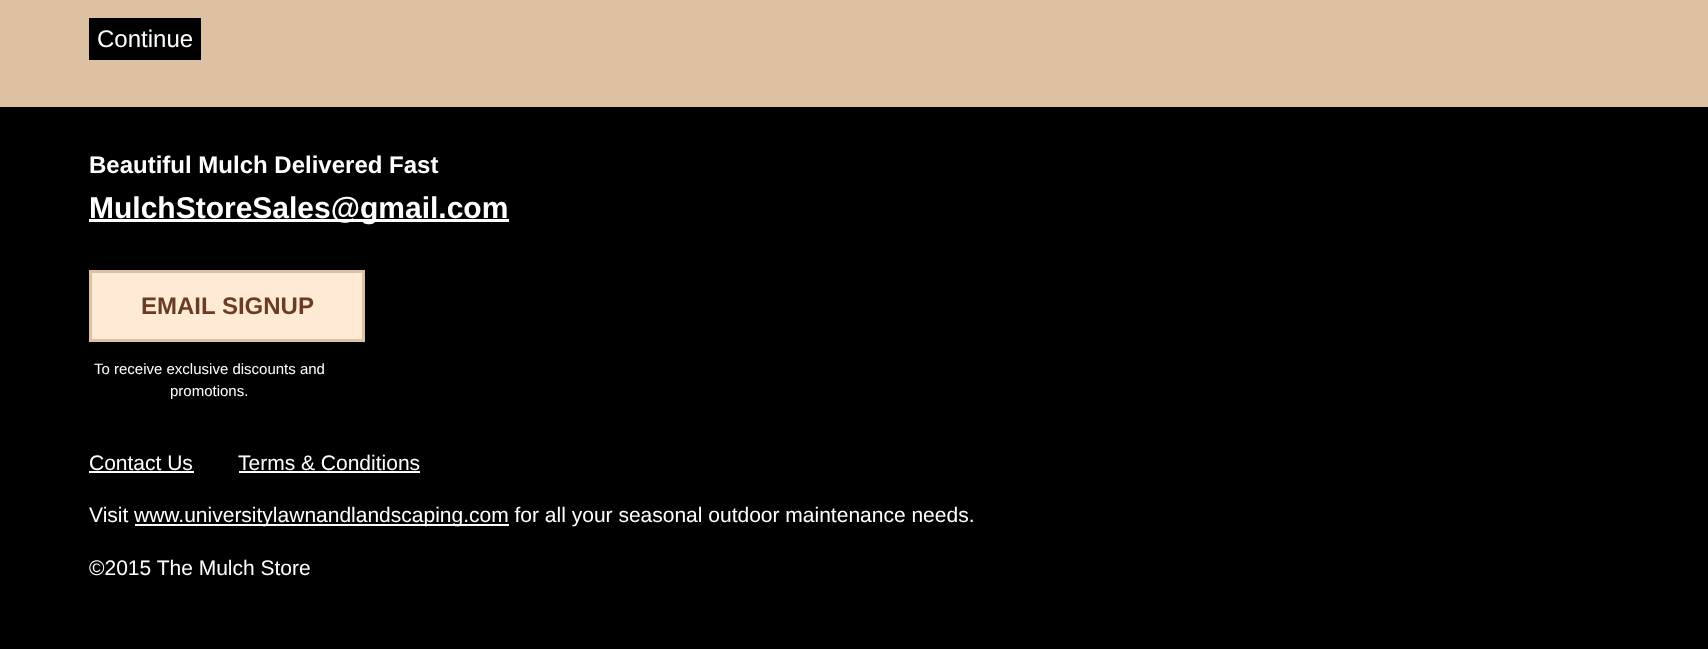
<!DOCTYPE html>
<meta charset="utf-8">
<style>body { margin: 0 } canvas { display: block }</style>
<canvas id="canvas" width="1708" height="649"></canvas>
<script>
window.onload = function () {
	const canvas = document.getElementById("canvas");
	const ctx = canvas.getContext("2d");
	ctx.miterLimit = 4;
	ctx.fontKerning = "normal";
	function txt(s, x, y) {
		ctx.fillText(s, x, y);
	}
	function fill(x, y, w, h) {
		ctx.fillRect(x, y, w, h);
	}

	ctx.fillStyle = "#000000";
	fill(0, 0, 1708, 649);
	ctx.fillStyle = "#DCC1A3";
	fill(0, 0, 1708, 107);
	ctx.fillStyle = "#000000";
	fill(89, 18, 112, 42);
	ctx.fillStyle = "#FFFFFF";
	fill(89, 219, 420, 3);
	ctx.fillStyle = "#FFEBD5";
	ctx.beginPath();
	ctx.rect(90.5, 271.5, 273, 69);
	ctx.fill();
	ctx.strokeStyle = "#DCC1A5";
	ctx.lineWidth = 3;
	ctx.stroke();
	ctx.fillStyle = "#FFFFFF";
	fill(89, 471, 105, 2);
	fill(239, 471, 181, 2);
	fill(135, 524, 374, 2);
	ctx.font = "24px Liberation Sans";
	txt("Continue", 97, 47);
	ctx.font = "bold 24px Liberation Sans";
	txt("Beautiful Mulch Delivered Fast", 89, 173);
	ctx.font = "bold 30px Liberation Sans";
	txt("MulchStoreSales@gmail.com", 89, 218);
	ctx.font = "bold 24px Liberation Sans";
	ctx.fillStyle = "#693C23";
	txt("EMAIL SIGNUP", 141, 314);
	ctx.font = "15px Liberation Sans";
	ctx.fillStyle = "#FFFFFF";
	txt("To receive exclusive discounts and", 94, 374);
	txt("promotions.", 170, 396);
	ctx.font = "21px Liberation Sans";
	txt("Contact Us", 89, 470);
	txt("Terms & Conditions", 238, 470);
	txt("Visit", 89, 522);
	txt("www.universitylawnandlandscaping.com for all your seasonal outdoor maintenance needs.", 134, 522);
	txt("©2015 The Mulch Store", 89, 575);
};
</script>
